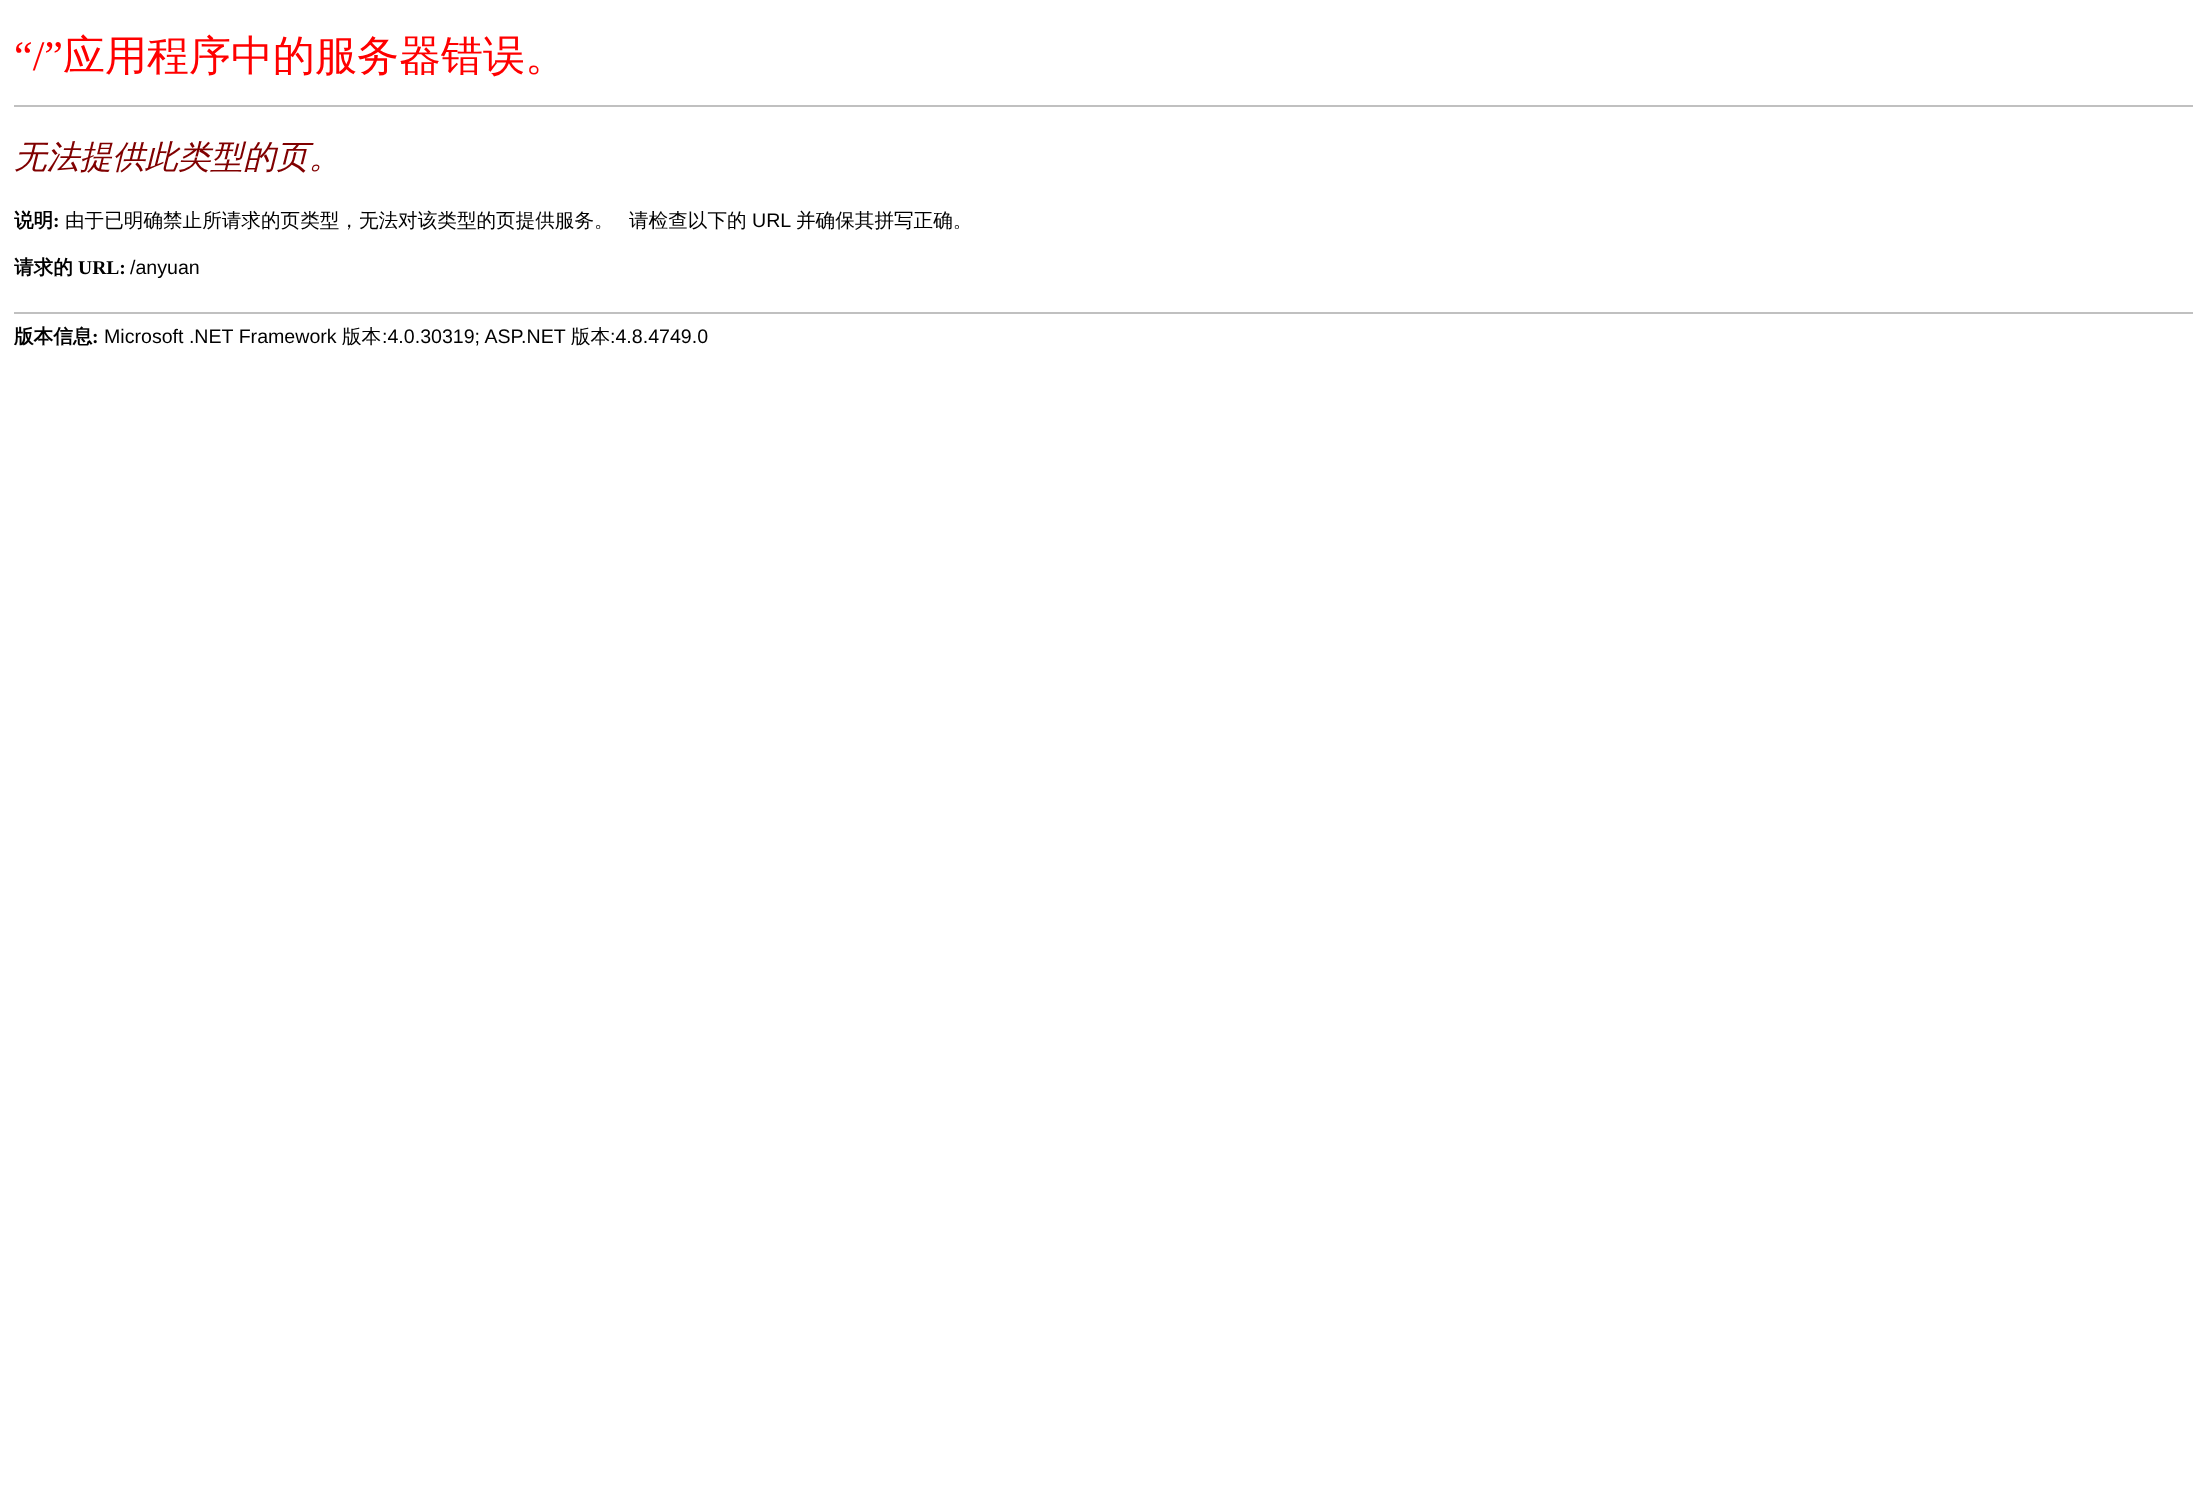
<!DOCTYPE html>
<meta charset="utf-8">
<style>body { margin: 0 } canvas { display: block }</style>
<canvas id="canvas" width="2202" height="1486"></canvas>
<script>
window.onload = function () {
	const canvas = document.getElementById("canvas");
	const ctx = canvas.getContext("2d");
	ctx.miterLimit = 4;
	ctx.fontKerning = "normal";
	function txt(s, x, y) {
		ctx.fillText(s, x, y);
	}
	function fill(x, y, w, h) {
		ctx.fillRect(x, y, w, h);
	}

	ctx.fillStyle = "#FFFFFF";
	fill(0, 0, 2202, 1486);
	ctx.fillStyle = "#C0C0C0";
	fill(14, 105, 2179, 2);
	fill(14, 312, 2179, 2);
	ctx.font = "42px Liberation Serif";
	ctx.fillStyle = "#FF0000";
	txt("“/”", 14, 70);
	ctx.font = "500 42px WenQuanYi Zen Hei";
	txt("应用程序中的服务器错误。", 63, 70);
	ctx.font = "italic 500 32.75px WenQuanYi Zen Hei";
	ctx.fillStyle = "#800000";
	txt("无法提供此类型的页。", 14, 168);
	ctx.font = "bold 19.6px WenQuanYi Zen Hei";
	ctx.fillStyle = "#000000";
	txt("说明", 14, 227);
	ctx.font = "bold 19.6px Liberation Serif";
	txt(":", 53, 227);
	ctx.font = "500 19.6px WenQuanYi Zen Hei";
	txt("由于已明确禁止所请求的页类型，无法对该类型的页提供服务。", 65, 227);
	txt("请检查以下的", 629, 227);
	ctx.font = "19.6px Liberation Sans";
	txt("URL", 752, 227);
	ctx.font = "500 19.6px WenQuanYi Zen Hei";
	txt("并确保其拼写正确。", 796, 227);
	ctx.font = "bold 19.6px WenQuanYi Zen Hei";
	txt("请求的", 14, 274);
	ctx.font = "bold 19.6px Liberation Serif";
	txt("URL:", 78, 274);
	ctx.font = "19.6px Liberation Sans";
	txt("/anyuan", 130, 274);
	ctx.font = "bold 19.6px WenQuanYi Zen Hei";
	txt("版本信息", 14, 343);
	ctx.font = "bold 19.6px Liberation Serif";
	txt(":", 92, 343);
	ctx.font = "19.6px Liberation Sans";
	txt("Microsoft .NET Framework", 104, 343);
	ctx.font = "500 19.6px WenQuanYi Zen Hei";
	txt("版本", 342, 343);
	ctx.font = "19.6px Liberation Sans";
	txt(":4.0.30319; ASP.NET", 382, 343);
	ctx.font = "500 19.6px WenQuanYi Zen Hei";
	txt("版本", 571, 343);
	ctx.font = "19.6px Liberation Sans";
	txt(":4.8.4749.0", 610, 343);
};
</script>
